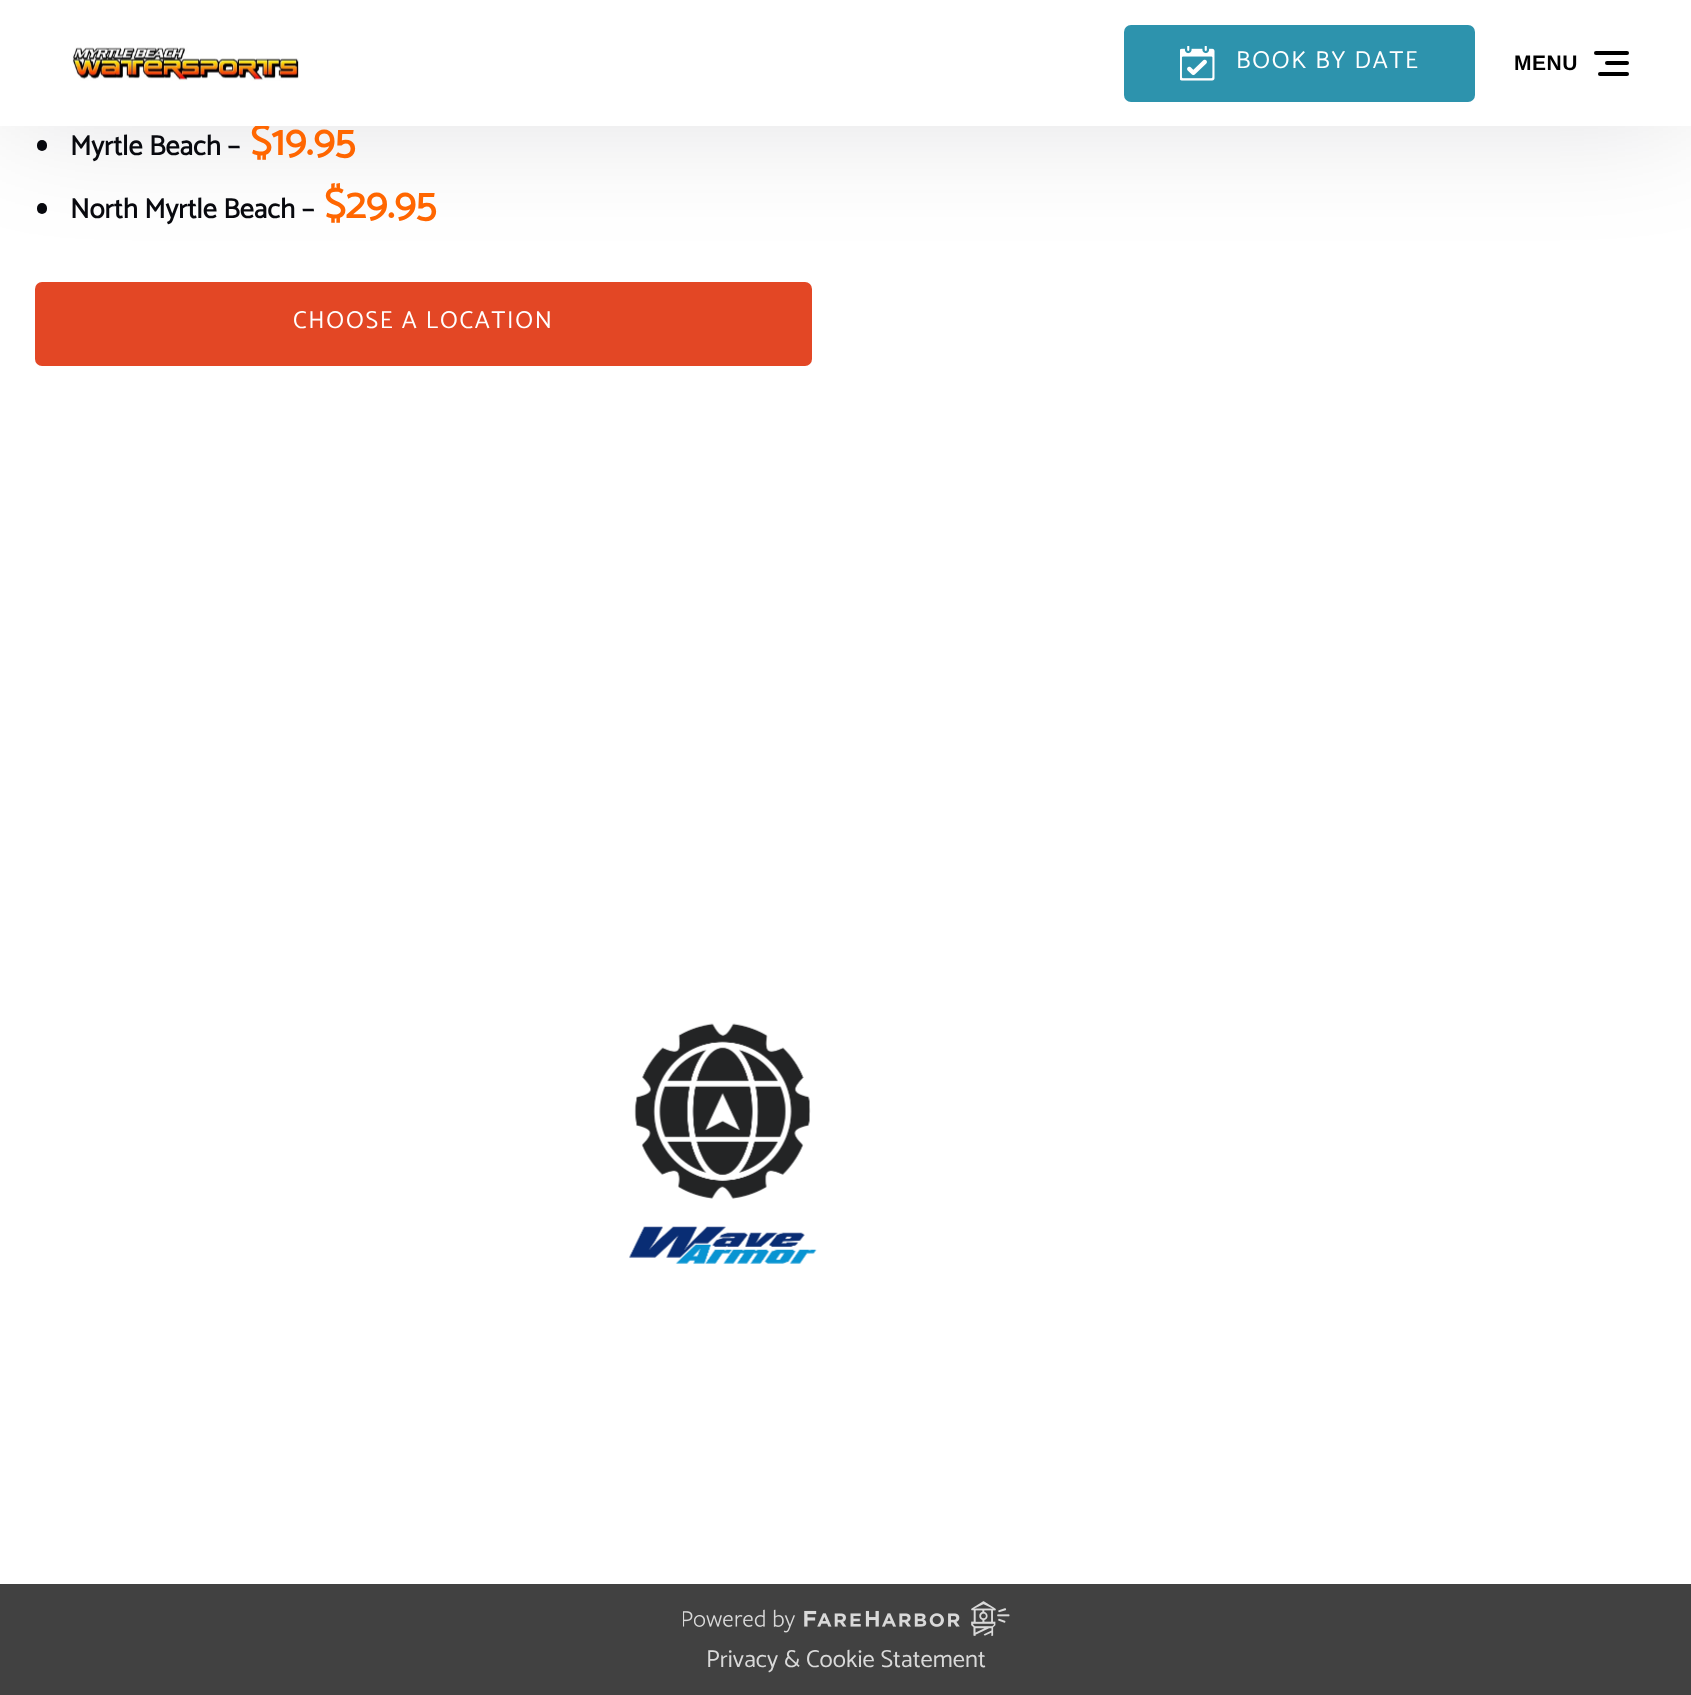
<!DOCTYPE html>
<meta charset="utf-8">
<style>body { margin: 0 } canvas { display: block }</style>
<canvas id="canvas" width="1691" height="1695"></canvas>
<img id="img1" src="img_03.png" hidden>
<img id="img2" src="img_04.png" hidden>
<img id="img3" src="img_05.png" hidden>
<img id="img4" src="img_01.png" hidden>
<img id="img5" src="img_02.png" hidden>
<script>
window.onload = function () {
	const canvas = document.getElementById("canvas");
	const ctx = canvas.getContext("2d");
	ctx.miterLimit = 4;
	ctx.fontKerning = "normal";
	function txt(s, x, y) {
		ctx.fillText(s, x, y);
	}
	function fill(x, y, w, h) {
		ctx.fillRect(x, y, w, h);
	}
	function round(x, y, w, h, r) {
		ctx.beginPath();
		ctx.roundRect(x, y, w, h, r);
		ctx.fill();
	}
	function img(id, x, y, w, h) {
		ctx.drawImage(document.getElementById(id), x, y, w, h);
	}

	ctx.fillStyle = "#FFFFFF";
	fill(0, 0, 1691, 1695);
	ctx.fillStyle = "#08090E";
	round(37, 140, 10, 11, 5);
	round(37, 203, 10, 11, 5);
	ctx.fillStyle = "#E34725";
	round(35, 282, 777, 84, 7);
	ctx.fillStyle = "rgba(8, 9, 14, 0.15)";
	ctx.filter = "blur(65.5px)";
	ctx.beginPath();
	ctx.rect(0, -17, 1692, 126);
	ctx.fill();
	ctx.filter = "none";
	img("img1", 634, 1023, 177, 176);
	img("img2", 629, 1226, 188, 38);
	ctx.fillStyle = "#414141";
	fill(0, 1584, 1691, 111);
	img("img3", 683, 1601, 327, 35);
	ctx.font = "bold 28px Catamaran";
	ctx.fillStyle = "#08090E";
	txt("Myrtle Beach –", 70, 155);
	ctx.font = "bold 42px Catamaran";
	ctx.fillStyle = "#FF6600";
	txt("$19.95", 250, 155);
	ctx.fillStyle = "#FFFFFF";
	fill(0, 0, 1691, 126);
	img("img4", 72, 47, 227, 34);
	ctx.fillStyle = "#000000";
	round(1598, 72, 31, 4, 2);
	round(1594, 51, 35, 4, 2);
	round(1605, 61, 24, 4, 2);
	ctx.letterSpacing = "0.5px";
	ctx.font = "bold 21px Liberation Sans";
	txt("MENU", 1514, 70);
	ctx.fillStyle = "#2D93AD";
	round(1124, 25, 351, 77, 7);
	img("img5", 1180, 46, 35, 35);
	ctx.letterSpacing = "1.75px";
	ctx.font = "100 24.5px Catamaran";
	ctx.fillStyle = "#FFFFFF";
	txt("BOOK BY DATE", 1236, 68);
	ctx.letterSpacing = "0px";
	ctx.font = "bold 28px Catamaran";
	ctx.fillStyle = "#08090E";
	txt("North Myrtle Beach –", 70, 218);
	ctx.font = "bold 42px Catamaran";
	ctx.fillStyle = "#FF6600";
	txt("$29.95", 324, 218);
	ctx.letterSpacing = "1.75px";
	ctx.font = "100 24.5px Catamaran";
	ctx.fillStyle = "#FFFFFF";
	txt("CHOOSE A LOCATION", 293, 328);
	ctx.letterSpacing = "0px";
	ctx.fillStyle = "#D9D9D9";
	txt("Privacy & Cookie Statement", 706, 1667);
};
</script>
